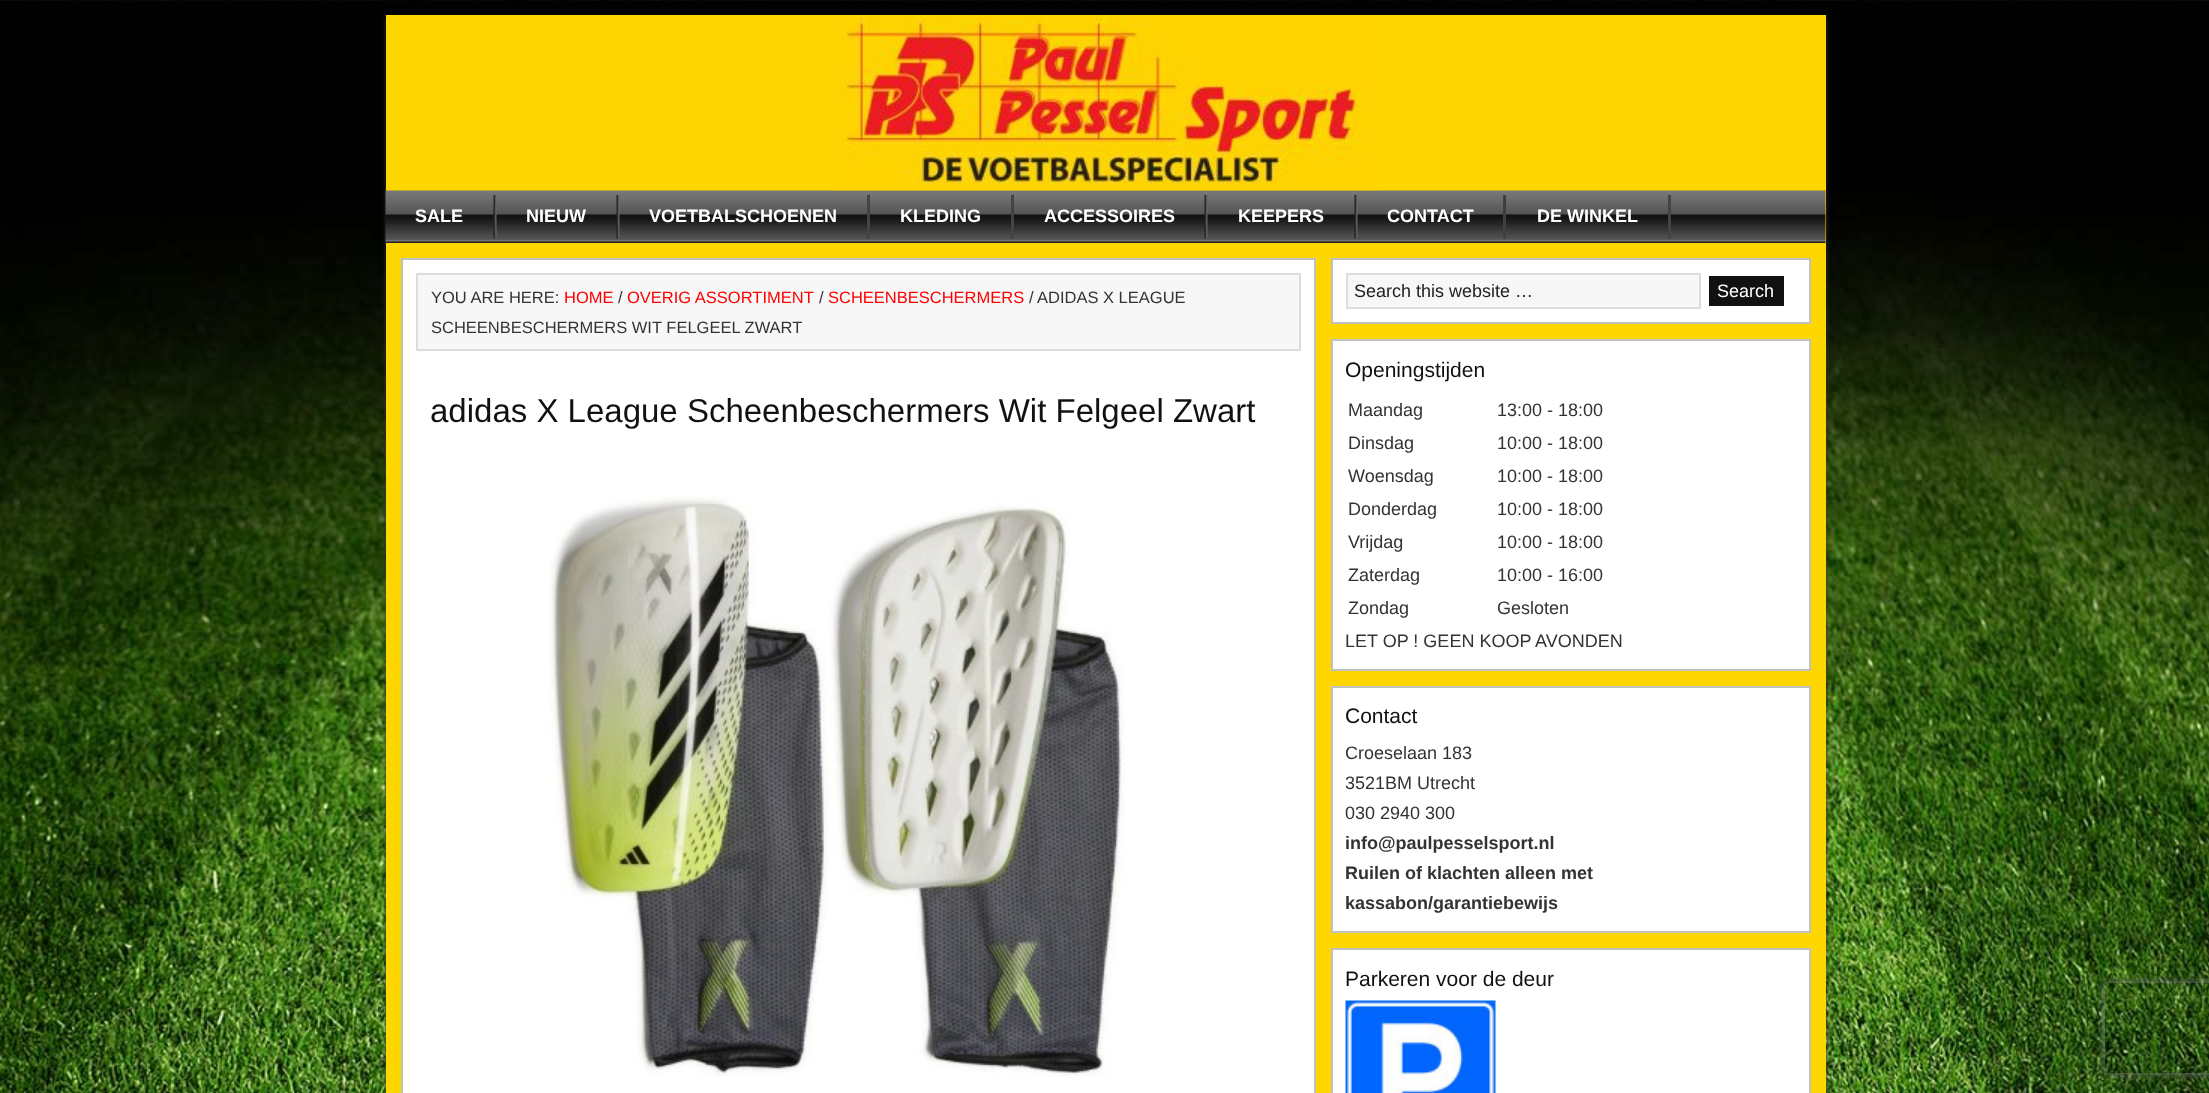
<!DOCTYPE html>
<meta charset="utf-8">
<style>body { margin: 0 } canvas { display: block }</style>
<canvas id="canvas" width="2209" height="1093"></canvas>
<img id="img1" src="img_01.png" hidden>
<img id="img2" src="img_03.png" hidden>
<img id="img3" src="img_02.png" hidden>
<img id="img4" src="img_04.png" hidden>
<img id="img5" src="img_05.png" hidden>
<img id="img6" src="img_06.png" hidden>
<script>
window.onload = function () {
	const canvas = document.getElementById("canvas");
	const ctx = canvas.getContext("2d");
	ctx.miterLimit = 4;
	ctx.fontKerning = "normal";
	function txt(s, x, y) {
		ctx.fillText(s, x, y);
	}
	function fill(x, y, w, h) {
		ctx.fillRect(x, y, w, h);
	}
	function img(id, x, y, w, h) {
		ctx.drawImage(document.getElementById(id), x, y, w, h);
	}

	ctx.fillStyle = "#FFFFFF";
	fill(0, 0, 2209, 1093);
	img("img1", 0, 0, 2209, 1093);
	ctx.fillStyle = "#333333";
	ctx.filter = "blur(2px)";
	ctx.beginPath();
	ctx.rect(386, 17, 1440, 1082);
	ctx.fill();
	ctx.filter = "none";
	ctx.fillStyle = "#FED600";
	fill(386, 15, 1440, 1078);
	img("img2", 385, 190, 1441, 53);
	img("img3", 832, 15, 545, 176);
	img("img4", 493, 195, 4, 44);
	img("img4", 616, 195, 4, 44);
	ctx.fillStyle = "#444444";
	fill(867, 195, 3, 44);
	fill(1011, 195, 3, 44);
	img("img4", 1204, 195, 4, 44);
	img("img4", 1354, 195, 4, 44);
	ctx.fillStyle = "#3F3F3F";
	fill(1503, 195, 3, 44);
	ctx.fillStyle = "#444444";
	fill(1668, 195, 3, 44);
	ctx.fillStyle = "#FFFFFF";
	ctx.beginPath();
	ctx.rect(402, 259, 913, 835);
	ctx.fill();
	ctx.strokeStyle = "#C0C0C0";
	ctx.lineWidth = 2;
	ctx.stroke();
	ctx.fillStyle = "#F7F7F7";
	ctx.beginPath();
	ctx.rect(417, 274, 883, 76);
	ctx.fill();
	ctx.strokeStyle = "#DDDDDD";
	ctx.stroke();
	img("img5", 549, 496, 576, 581);
	ctx.fillStyle = "#FFFFFF";
	ctx.beginPath();
	ctx.rect(1332, 259, 478, 64);
	ctx.fill();
	ctx.strokeStyle = "#C0C0C0";
	ctx.stroke();
	ctx.fillStyle = "#F7F7F7";
	ctx.beginPath();
	ctx.rect(1347, 274, 353, 34);
	ctx.fill();
	ctx.strokeStyle = "#DDDDDD";
	ctx.stroke();
	ctx.fillStyle = "#111111";
	fill(1709, 276, 75, 30);
	ctx.fillStyle = "#FFFFFF";
	ctx.beginPath();
	ctx.rect(1332, 340, 478, 330);
	ctx.fill();
	ctx.strokeStyle = "#C0C0C0";
	ctx.stroke();
	ctx.beginPath();
	ctx.rect(1332, 687, 478, 245);
	ctx.fill();
	ctx.stroke();
	ctx.beginPath();
	ctx.rect(1332, 949, 478, 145);
	ctx.fill();
	ctx.stroke();
	img("img6", 1345, 1000, 151, 93);
	ctx.save();
	ctx.beginPath();
	ctx.moveTo(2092, 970);
	ctx.lineTo(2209, 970);
	ctx.lineTo(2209, 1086);
	ctx.lineTo(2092, 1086);
	ctx.closePath();
	ctx.moveTo(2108, 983);
	ctx.lineTo(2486, 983);
	ctx.bezierCurveTo(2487.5, 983, 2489, 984.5, 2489, 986);
	ctx.lineTo(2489, 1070);
	ctx.bezierCurveTo(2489, 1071.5, 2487.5, 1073, 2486, 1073);
	ctx.lineTo(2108, 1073);
	ctx.bezierCurveTo(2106.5, 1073, 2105, 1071.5, 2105, 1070);
	ctx.lineTo(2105, 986);
	ctx.bezierCurveTo(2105, 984.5, 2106.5, 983, 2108, 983);
	ctx.closePath();
	ctx.clip("evenodd");
	ctx.fillStyle = "#808080";
	ctx.filter = "blur(4px)";
	ctx.beginPath();
	ctx.roundRect(2105, 983, 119, 90, 3);
	ctx.fill();
	ctx.filter = "none";
	ctx.restore();
	ctx.font = "bold 18px Liberation Sans";
	txt("SALE", 415, 222);
	txt("NIEUW", 526, 222);
	txt("VOETBALSCHOENEN", 649, 222);
	txt("KLEDING", 900, 222);
	txt("ACCESSOIRES", 1044, 222);
	txt("KEEPERS", 1238, 222);
	txt("CONTACT", 1387, 222);
	txt("DE WINKEL", 1537, 222);
	ctx.font = "16.5px Liberation Sans";
	ctx.fillStyle = "#333333";
	txt("YOU ARE HERE:", 431, 303);
	ctx.fillStyle = "#FF0000";
	txt("HOME", 564, 303);
	ctx.fillStyle = "#333333";
	txt("/", 618, 303);
	ctx.fillStyle = "#FF0000";
	txt("OVERIG ASSORTIMENT", 627, 303);
	ctx.fillStyle = "#333333";
	txt("/", 819, 303);
	ctx.fillStyle = "#FF0000";
	txt("SCHEENBESCHERMERS", 828, 303);
	ctx.fillStyle = "#333333";
	txt("/", 1029, 303);
	txt("ADIDAS X LEAGUE", 1037, 303);
	txt("SCHEENBESCHERMERS WIT FELGEEL ZWART", 431, 333);
	ctx.font = "33px Liberation Sans";
	ctx.fillStyle = "#111111";
	txt("adidas X League Scheenbeschermers Wit Felgeel Zwart", 430, 422);
	ctx.font = "18px Liberation Sans";
	ctx.fillStyle = "#222222";
	txt("Search this website …", 1354, 297);
	ctx.fillStyle = "#FFFFFF";
	txt("Search", 1717, 297);
	ctx.font = "21px Liberation Sans";
	ctx.fillStyle = "#111111";
	txt("Openingstijden", 1345, 377);
	ctx.font = "18px Liberation Sans";
	ctx.fillStyle = "#333333";
	txt("Maandag", 1348, 416);
	txt("13:00 - 18:00", 1497, 416);
	txt("Dinsdag", 1348, 449);
	txt("10:00 - 18:00", 1497, 449);
	txt("Woensdag", 1348, 482);
	txt("10:00 - 18:00", 1497, 482);
	txt("Donderdag", 1348, 515);
	txt("10:00 - 18:00", 1497, 515);
	txt("Vrijdag", 1348, 548);
	txt("10:00 - 18:00", 1497, 548);
	txt("Zaterdag", 1348, 581);
	txt("10:00 - 16:00", 1497, 581);
	txt("Zondag", 1348, 614);
	txt("Gesloten", 1497, 614);
	txt("LET OP ! GEEN KOOP AVONDEN", 1345, 647);
	ctx.font = "21px Liberation Sans";
	ctx.fillStyle = "#111111";
	txt("Contact", 1345, 723);
	ctx.font = "18px Liberation Sans";
	ctx.fillStyle = "#333333";
	txt("Croeselaan 183", 1345, 759);
	txt("3521BM Utrecht", 1345, 789);
	txt("030 2940 300", 1345, 819);
	ctx.font = "bold 18px Liberation Sans";
	txt("info@paulpesselsport.nl", 1345, 849);
	txt("Ruilen of klachten alleen met", 1345, 879);
	txt("kassabon/garantiebewijs", 1345, 909);
	ctx.font = "21px Liberation Sans";
	ctx.fillStyle = "#111111";
	txt("Parkeren voor de deur", 1345, 986);
};
</script>
